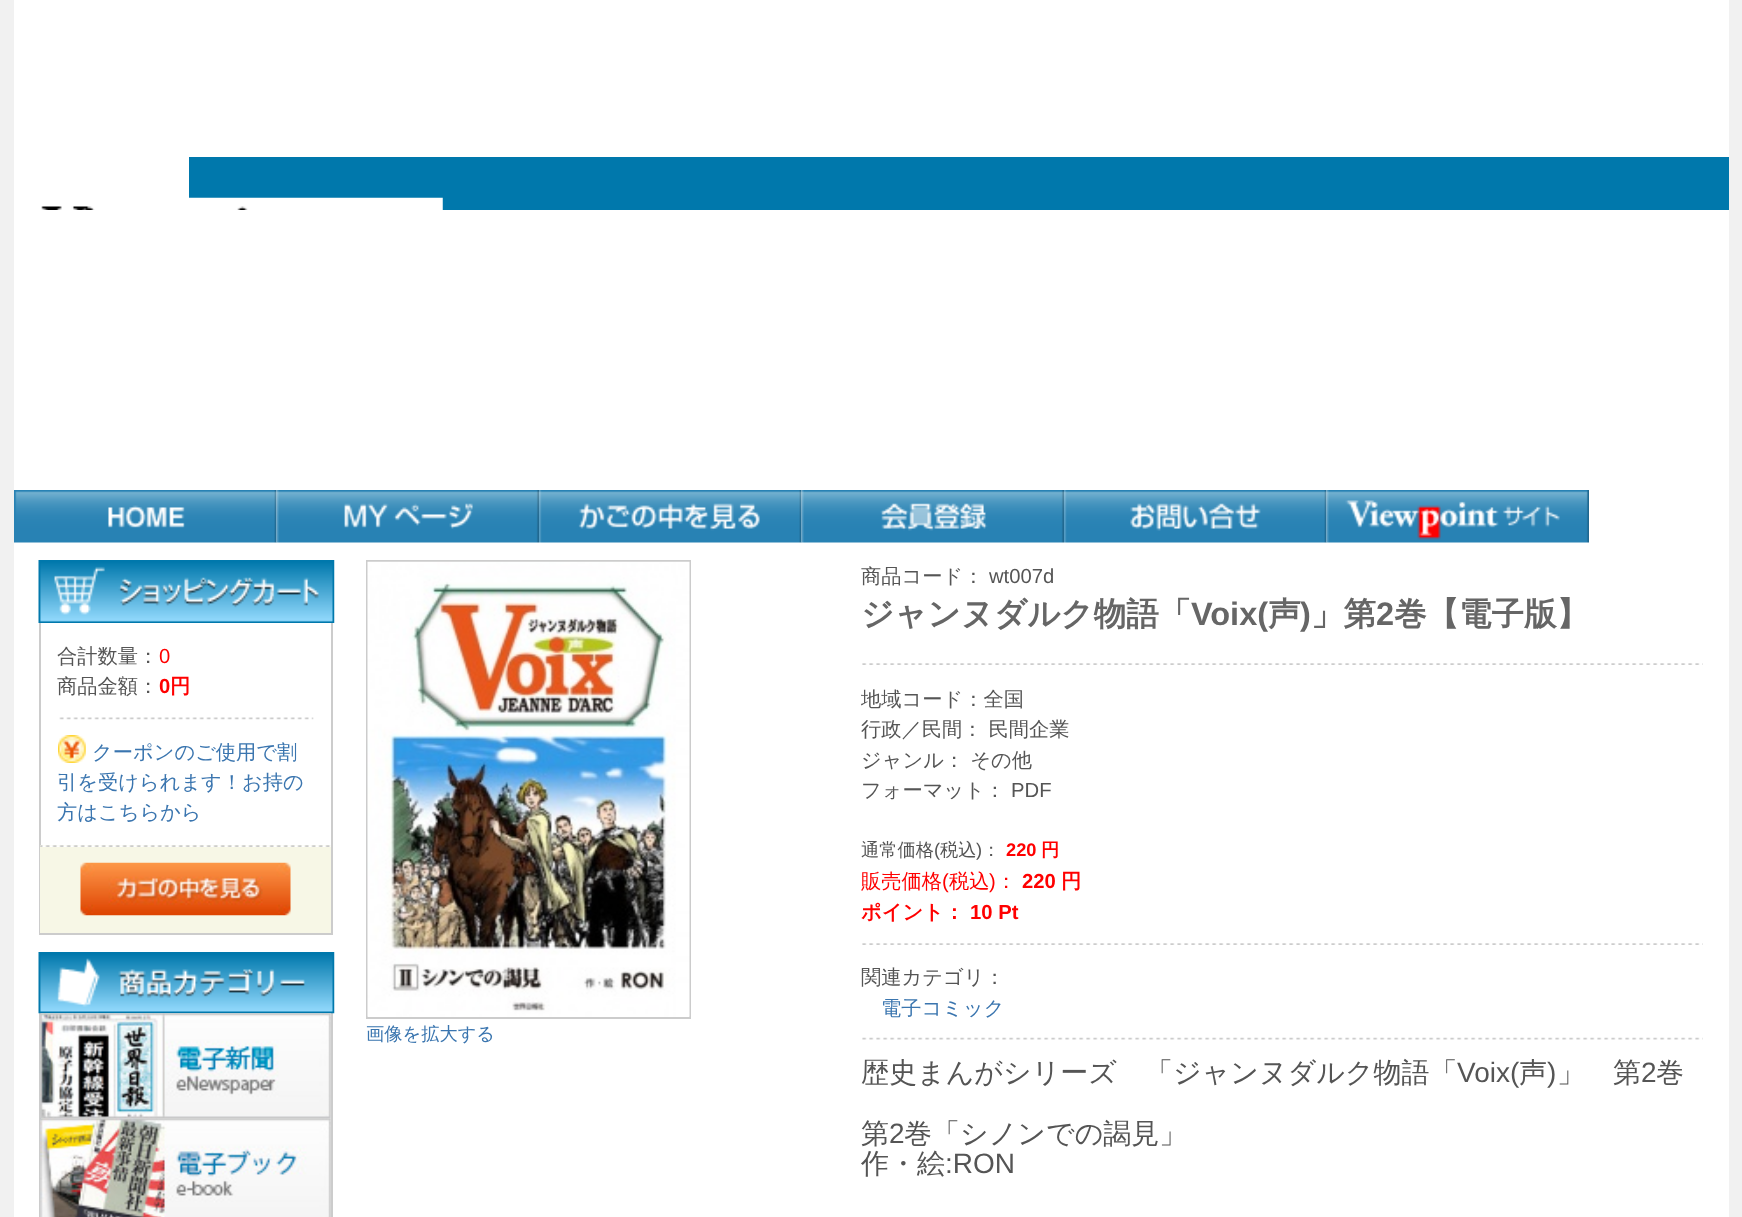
<!DOCTYPE html>
<meta charset="utf-8">
<style>body { margin: 0 } canvas { display: block }</style>
<canvas id="canvas" width="1742" height="1217"></canvas>
<img id="img1" src="img_01.png" hidden>
<img id="img2" src="img_02.png" hidden>
<img id="img3" src="img_03.png" hidden>
<img id="img4" src="img_04.png" hidden>
<img id="img5" src="img_05.png" hidden>
<img id="img6" src="img_06.png" hidden>
<img id="img7" src="img_07.png" hidden>
<img id="img8" src="img_08.png" hidden>
<img id="img9" src="img_09.png" hidden>
<img id="img10" src="img_10.png" hidden>
<img id="img11" src="img_11.png" hidden>
<img id="img12" src="img_12.png" hidden>
<img id="img13" src="img_13.png" hidden>
<img id="img14" src="img_14.png" hidden>
<img id="img15" src="img_15.png" hidden>
<img id="img16" src="img_16.png" hidden>
<img id="img17" src="img_17.png" hidden>
<img id="img18" src="img_18.png" hidden>
<script>
window.onload = function () {
	const canvas = document.getElementById("canvas");
	const ctx = canvas.getContext("2d");
	ctx.miterLimit = 4;
	ctx.fontKerning = "normal";
	function txt(s, x, y) {
		ctx.fillText(s, x, y);
	}
	function fill(x, y, w, h) {
		ctx.fillRect(x, y, w, h);
	}
	function img(id, x, y, w, h) {
		ctx.drawImage(document.getElementById(id), x, y, w, h);
	}

	ctx.fillStyle = "#F1F1F1";
	fill(0, 0, 1742, 1217);
	ctx.fillStyle = "#FFFFFF";
	fill(14, 0, 1715, 1217);
	ctx.fillStyle = "#0078AC";
	fill(189, 157, 1540, 53);
	img("img1", 40, 197, 403, 13);
	img("img2", 14, 490, 263, 53);
	img("img3", 276, 490, 263, 53);
	img("img4", 539, 490, 263, 53);
	img("img5", 801, 490, 263, 53);
	img("img6", 1064, 490, 263, 53);
	img("img7", 1326, 490, 263, 53);
	img("img8", 38, 560, 297, 63);
	ctx.fillStyle = "#CCCCCC";
	fill(331, 623, 2, 312);
	fill(39, 933, 294, 2);
	fill(39, 623, 2, 312);
	img("img9", 59, 717, 255, 3);
	img("img10", 58, 735, 28, 28);
	ctx.fillStyle = "#F7F7E6";
	fill(40, 845, 291, 88);
	img("img11", 40, 845, 291, 2);
	img("img12", 80, 862, 211, 54);
	ctx.fillStyle = "#CCCCCC";
	fill(331, 1013, 2, 204);
	fill(39, 1013, 2, 204);
	img("img13", 38, 952, 297, 62);
	img("img14", 40, 1013, 291, 106);
	img("img15", 40, 1118, 291, 99);
	ctx.strokeStyle = "#CCCCCC";
	ctx.lineWidth = 2;
	ctx.strokeRect(367, 561, 323, 457);
	img("img16", 367, 561, 323, 456);
	img("img17", 862, 663, 841, 2);
	img("img17", 862, 943, 841, 2);
	img("img18", 862, 1037, 841, 3);
	ctx.font = "500 20.25px WenQuanYi Zen Hei";
	ctx.fillStyle = "#555555";
	txt("合計数量：", 57, 663);
	ctx.font = "20.25px Liberation Sans";
	ctx.fillStyle = "#FF0000";
	txt("0", 159, 663);
	ctx.font = "500 20.25px WenQuanYi Zen Hei";
	ctx.fillStyle = "#555555";
	txt("商品金額：", 57, 693);
	ctx.font = "bold 20.25px Liberation Sans";
	ctx.fillStyle = "#FF0000";
	txt("0", 159, 693);
	ctx.font = "bold 20.25px WenQuanYi Zen Hei";
	txt("円", 170, 693);
	ctx.font = "500 20.25px WenQuanYi Zen Hei";
	ctx.fillStyle = "#3A75AF";
	txt("クーポンのご使用で割", 92, 759);
	txt("引を受けられます！お持の", 57, 789);
	txt("方はこちらから", 57, 819);
	ctx.font = "500 18.25px WenQuanYi Zen Hei";
	txt("画像を拡大する", 366, 1040);
	ctx.font = "500 20.25px WenQuanYi Zen Hei";
	ctx.fillStyle = "#555555";
	txt("商品コード：", 861, 583);
	ctx.font = "20.25px Liberation Sans";
	txt("wt007d", 989, 583);
	ctx.font = "bold 32.5px WenQuanYi Zen Hei";
	ctx.fillStyle = "#666666";
	txt("ジャンヌダルク物語「", 861, 625);
	ctx.font = "bold 32.5px Liberation Sans";
	txt("Voix(", 1191, 625);
	ctx.font = "bold 32.5px WenQuanYi Zen Hei";
	txt("声", 1268, 625);
	ctx.font = "bold 32.5px Liberation Sans";
	txt(")", 1300, 625);
	ctx.font = "bold 32.5px WenQuanYi Zen Hei";
	txt("」第", 1311, 625);
	ctx.font = "bold 32.5px Liberation Sans";
	txt("2", 1376, 625);
	ctx.font = "bold 32.5px WenQuanYi Zen Hei";
	txt("巻【電子版】", 1394, 625);
	ctx.font = "500 20.25px WenQuanYi Zen Hei";
	ctx.fillStyle = "#555555";
	txt("地域コード：全国", 861, 706);
	txt("行政／民間： 民間企業", 861, 736);
	txt("ジャンル： その他", 861, 767);
	txt("フォーマット：", 861, 797);
	ctx.font = "20.25px Liberation Sans";
	txt("PDF", 1011, 797);
	ctx.font = "500 18.25px WenQuanYi Zen Hei";
	txt("通常価格", 861, 856);
	ctx.font = "18.25px Liberation Sans";
	txt("(", 934, 856);
	ctx.font = "500 18.25px WenQuanYi Zen Hei";
	txt("税込", 940, 856);
	ctx.font = "18.25px Liberation Sans";
	txt(")", 976, 856);
	ctx.font = "500 18.25px WenQuanYi Zen Hei";
	txt("：", 982, 856);
	ctx.font = "bold 18.25px Liberation Sans";
	ctx.fillStyle = "#FF0000";
	txt("220", 1006, 856);
	ctx.font = "bold 18.25px WenQuanYi Zen Hei";
	txt("円", 1041, 856);
	ctx.font = "500 20.25px WenQuanYi Zen Hei";
	txt("販売価格", 861, 888);
	ctx.font = "20.25px Liberation Sans";
	txt("(", 942, 888);
	ctx.font = "500 20.25px WenQuanYi Zen Hei";
	txt("税込", 949, 888);
	ctx.font = "20.25px Liberation Sans";
	txt(")", 989, 888);
	ctx.font = "500 20.25px WenQuanYi Zen Hei";
	txt("：", 996, 888);
	ctx.font = "bold 20.25px Liberation Sans";
	txt("220", 1022, 888);
	ctx.font = "bold 20.25px WenQuanYi Zen Hei";
	txt("円", 1061, 888);
	txt("ポイント：", 861, 919);
	ctx.font = "bold 20.25px Liberation Sans";
	txt("10 Pt", 970, 919);
	ctx.font = "500 20.25px WenQuanYi Zen Hei";
	ctx.fillStyle = "#555555";
	txt("関連カテゴリ：", 861, 984);
	ctx.fillStyle = "#3A75AF";
	txt("電子コミック", 881, 1015);
	ctx.font = "500 28px WenQuanYi Zen Hei";
	ctx.fillStyle = "#555555";
	txt("歴史まんがシリーズ　「ジャンヌダルク物語「", 861, 1082);
	ctx.font = "28px Liberation Sans";
	txt("Voix(", 1457, 1082);
	ctx.font = "500 28px WenQuanYi Zen Hei";
	txt("声", 1519, 1082);
	ctx.font = "28px Liberation Sans";
	txt(")", 1547, 1082);
	ctx.font = "500 28px WenQuanYi Zen Hei";
	txt("」　第", 1557, 1082);
	ctx.font = "28px Liberation Sans";
	txt("2", 1641, 1082);
	ctx.font = "500 28px WenQuanYi Zen Hei";
	txt("巻", 1656, 1082);
	txt("第", 861, 1143);
	ctx.font = "28px Liberation Sans";
	txt("2", 889, 1143);
	ctx.font = "500 28px WenQuanYi Zen Hei";
	txt("巻「シノンでの謁見」", 904, 1143);
	txt("作・絵", 861, 1173);
	ctx.font = "28px Liberation Sans";
	txt(":RON", 945, 1173);
};
</script>
